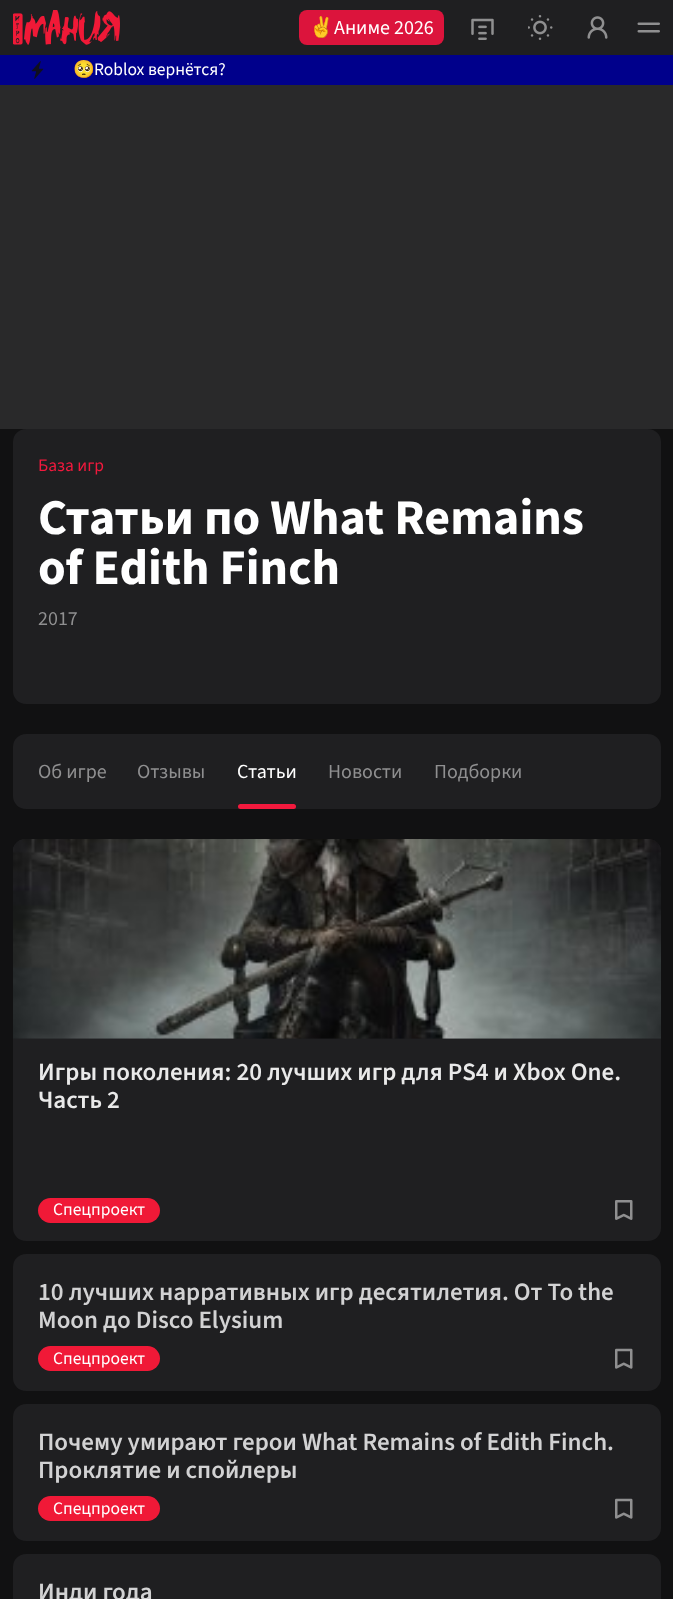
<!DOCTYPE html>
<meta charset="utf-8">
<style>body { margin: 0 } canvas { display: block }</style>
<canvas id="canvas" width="673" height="1599"></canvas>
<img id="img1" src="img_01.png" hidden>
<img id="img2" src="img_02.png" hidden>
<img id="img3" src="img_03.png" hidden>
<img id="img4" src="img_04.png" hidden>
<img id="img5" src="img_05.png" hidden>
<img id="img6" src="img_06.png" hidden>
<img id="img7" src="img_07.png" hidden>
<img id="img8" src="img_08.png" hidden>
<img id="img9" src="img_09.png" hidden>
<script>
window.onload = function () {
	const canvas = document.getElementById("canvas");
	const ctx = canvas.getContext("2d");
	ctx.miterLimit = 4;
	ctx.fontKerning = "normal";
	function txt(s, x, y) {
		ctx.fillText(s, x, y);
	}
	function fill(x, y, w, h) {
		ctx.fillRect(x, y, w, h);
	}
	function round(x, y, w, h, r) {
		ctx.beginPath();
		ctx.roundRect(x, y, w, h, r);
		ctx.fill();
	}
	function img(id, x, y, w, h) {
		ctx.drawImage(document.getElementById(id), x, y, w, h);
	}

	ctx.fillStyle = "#111112";
	fill(0, 0, 673, 1599);
	ctx.fillStyle = "#1F1F21";
	fill(0, 0, 673, 55);
	img("img1", 13, 10, 107, 35);
	ctx.fillStyle = "#DC143C";
	round(299, 10, 145, 35, 8);
	img("img2", 471, 18, 23, 22);
	img("img3", 528, 15, 25, 25);
	img("img4", 587, 16, 21, 23);
	img("img5", 637, 22, 23, 11);
	ctx.fillStyle = "#00008B";
	fill(0, 55, 673, 30);
	img("img6", 31, 61, 13, 18);
	ctx.fillStyle = "#29292A";
	fill(0, 85, 673, 344);
	ctx.fillStyle = "#1F1F21";
	round(13, 429, 648, 275, 13);
	round(13, 734, 648, 75, 13);
	ctx.fillStyle = "#F2193D";
	round(238, 804, 58, 5, 2.5);
	ctx.fillStyle = "#1F1F21";
	round(13, 839, 648, 402, 13);
	ctx.beginPath();
	ctx.roundRect(13, 839, 648, 200, [13, 13, 0, 0]);
	ctx.fill();
	img("img7", 13, 839, 648, 200);
	ctx.fillStyle = "#F01937";
	round(38, 1198, 122, 25, 12.5);
	img("img8", 615, 1200, 18, 20);
	ctx.fillStyle = "#1F1F21";
	round(13, 1254, 648, 137, 13);
	ctx.fillStyle = "#F01937";
	round(38, 1346, 122, 25, 12.5);
	img("img9", 615, 1348, 18, 21);
	ctx.fillStyle = "#1F1F21";
	round(13, 1404, 648, 137, 13);
	ctx.fillStyle = "#F01937";
	round(38, 1496, 122, 25, 12.5);
	img("img9", 615, 1498, 18, 21);
	ctx.fillStyle = "#1F1F21";
	round(13, 1554, 648, 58, 13);
	ctx.font = "20px Noto Color Emoji";
	ctx.fillStyle = "#FFFFFF";
	txt("✌", 309, 34);
	ctx.font = "20px 'Source Sans 3'";
	txt("Аниме 2026", 334, 34);
	ctx.font = "17.5px Noto Color Emoji";
	txt("🥺", 73, 75);
	ctx.font = "17.5px 'Source Sans 3'";
	txt("Roblox вернётся?", 94, 75);
	ctx.fillStyle = "#F2193D";
	txt("База игр", 38, 471);
	ctx.font = "bold 50px 'Source Sans 3'";
	ctx.fillStyle = "#FFFFFF";
	txt("Статьи по What Remains", 38, 534);
	txt("of Edith Finch", 38, 584);
	ctx.font = "20px 'Source Sans 3'";
	ctx.fillStyle = "#8F8F90";
	txt("2017", 38, 625);
	txt("Об игре", 38, 778);
	txt("Отзывы", 137, 778);
	ctx.fillStyle = "#FFFFFF";
	txt("Статьи", 237, 778);
	ctx.fillStyle = "#8F8F90";
	txt("Новости", 328, 778);
	txt("Подборки", 434, 778);
	ctx.font = "600 25px 'Source Sans 3'";
	ctx.fillStyle = "#E9E9E9";
	txt("Игры поколения: 20 лучших игр для PS4 и Xbox One.", 38, 1080);
	txt("Часть 2", 38, 1108);
	ctx.font = "17.5px 'Source Sans 3'";
	ctx.fillStyle = "#FFFFFF";
	txt("Спецпроект", 53, 1215);
	ctx.font = "600 25px 'Source Sans 3'";
	ctx.fillStyle = "#D2D2D3";
	txt("10 лучших нарративных игр десятилетия. От To the", 38, 1300);
	txt("Moon до Disco Elysium", 38, 1328);
	ctx.font = "17.5px 'Source Sans 3'";
	ctx.fillStyle = "#FFFFFF";
	txt("Спецпроект", 53, 1364);
	ctx.font = "600 25px 'Source Sans 3'";
	ctx.fillStyle = "#D2D2D3";
	txt("Почему умирают герои What Remains of Edith Finch.", 38, 1450);
	txt("Проклятие и спойлеры", 38, 1478);
	ctx.font = "17.5px 'Source Sans 3'";
	ctx.fillStyle = "#FFFFFF";
	txt("Спецпроект", 53, 1514);
	ctx.font = "600 25px 'Source Sans 3'";
	ctx.fillStyle = "#D2D2D3";
	txt("Инди года", 38, 1600);
};
</script>
